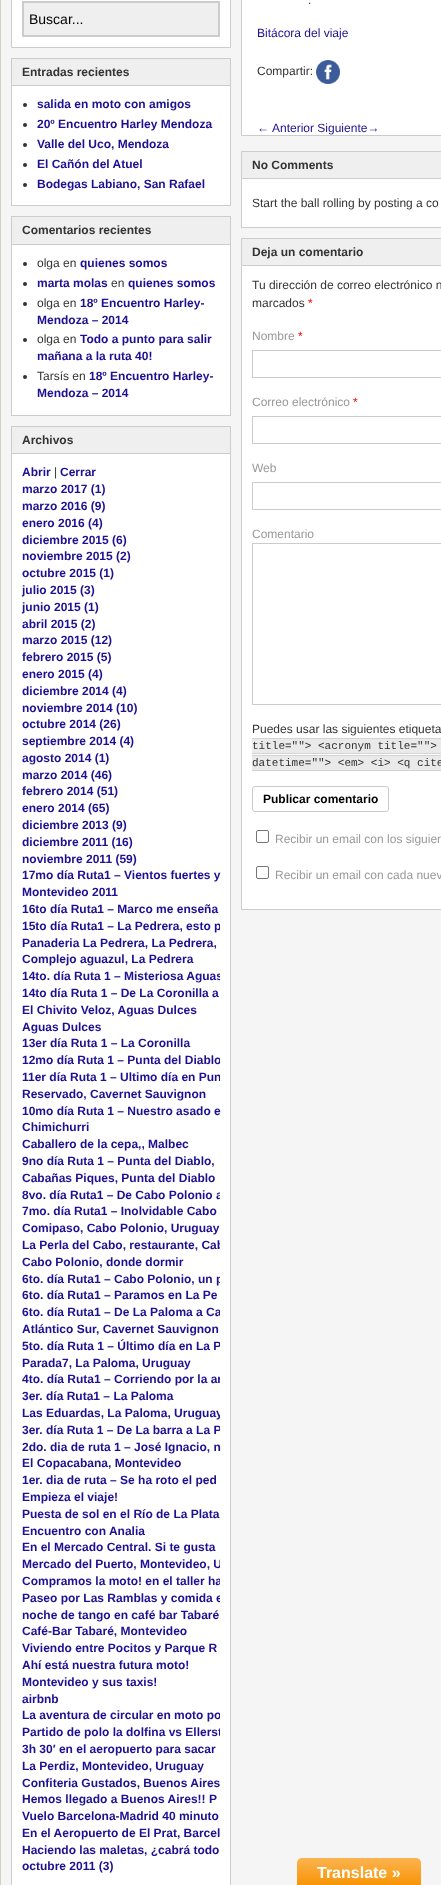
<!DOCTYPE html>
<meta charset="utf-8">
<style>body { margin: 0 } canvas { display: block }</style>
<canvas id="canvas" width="441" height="1885"></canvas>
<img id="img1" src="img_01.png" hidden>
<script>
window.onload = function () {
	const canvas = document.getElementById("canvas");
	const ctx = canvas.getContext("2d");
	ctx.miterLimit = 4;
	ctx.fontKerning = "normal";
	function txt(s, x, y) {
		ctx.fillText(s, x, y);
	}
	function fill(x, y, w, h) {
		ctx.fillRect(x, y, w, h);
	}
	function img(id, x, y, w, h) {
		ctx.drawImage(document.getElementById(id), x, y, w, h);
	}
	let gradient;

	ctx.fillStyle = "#F5F5F5";
	fill(0, 0, 441, 1885);
	ctx.strokeStyle = "#D3D1C7";
	ctx.strokeRect(0.5, -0.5, 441, 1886);
	ctx.fillStyle = "#FFFFFF";
	ctx.beginPath();
	ctx.rect(11.5, -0.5, 219, 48);
	ctx.fill();
	ctx.strokeStyle = "#CCCCCC";
	ctx.stroke();
	ctx.fillStyle = "#EFEFEF";
	ctx.beginPath();
	ctx.rect(23, 2, 196, 34);
	ctx.fill();
	ctx.lineWidth = 2;
	ctx.stroke();
	ctx.fillStyle = "#FFFFFF";
	fill(12, 86, 218, 119);
	ctx.lineWidth = 1;
	ctx.strokeRect(11.5, 58.5, 219, 147);
	ctx.fillStyle = "#EFEFEF";
	fill(12, 59, 218, 26);
	ctx.fillStyle = "#CCCCCC";
	fill(12, 85, 218, 1);
	ctx.fillStyle = "#333333";
	ctx.beginPath();
	ctx.arc(25, 105, 2, 0, Math.PI * 2);
	ctx.fill();
	ctx.beginPath();
	ctx.arc(25, 125, 2, 0, Math.PI * 2);
	ctx.fill();
	ctx.beginPath();
	ctx.arc(25, 145, 2, 0, Math.PI * 2);
	ctx.fill();
	ctx.beginPath();
	ctx.arc(25, 165, 2, 0, Math.PI * 2);
	ctx.fill();
	ctx.beginPath();
	ctx.arc(25, 185, 2, 0, Math.PI * 2);
	ctx.fill();
	ctx.fillStyle = "#FFFFFF";
	fill(12, 245, 218, 170);
	ctx.strokeRect(11.5, 216.5, 219, 199);
	ctx.fillStyle = "#EFEFEF";
	fill(12, 217, 218, 27);
	ctx.fillStyle = "#CCCCCC";
	fill(12, 244, 218, 1);
	ctx.fillStyle = "#333333";
	ctx.beginPath();
	ctx.arc(25, 264, 2, 0, Math.PI * 2);
	ctx.fill();
	ctx.beginPath();
	ctx.arc(25, 284, 2, 0, Math.PI * 2);
	ctx.fill();
	ctx.beginPath();
	ctx.arc(25, 304, 2, 0, Math.PI * 2);
	ctx.fill();
	ctx.beginPath();
	ctx.arc(25, 340, 2, 0, Math.PI * 2);
	ctx.fill();
	ctx.beginPath();
	ctx.arc(25, 377, 2, 0, Math.PI * 2);
	ctx.fill();
	ctx.fillStyle = "#FFFFFF";
	fill(12, 454, 218, 1431);
	ctx.strokeRect(11.5, 426.5, 219, 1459);
	ctx.fillStyle = "#EFEFEF";
	fill(12, 427, 218, 26);
	ctx.fillStyle = "#CCCCCC";
	fill(12, 453, 218, 1);
	ctx.fillStyle = "#FFFFFF";
	ctx.beginPath();
	ctx.rect(241.5, -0.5, 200, 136);
	ctx.fill();
	ctx.stroke();
	img("img1", 316, 60, 24, 24);
	ctx.fillStyle = "#EFEFEF";
	ctx.beginPath();
	ctx.rect(241.5, 151.5, 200, 27);
	ctx.fill();
	ctx.stroke();
	ctx.fillStyle = "#FFFFFF";
	fill(242, 179, 199, 48);
	ctx.fillStyle = "#CCCCCC";
	fill(241, 227, 200, 1);
	fill(241, 179, 1, 49);
	ctx.fillStyle = "#EFEFEF";
	ctx.beginPath();
	ctx.rect(241.5, 238.5, 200, 27);
	ctx.fill();
	ctx.stroke();
	ctx.fillStyle = "#FFFFFF";
	fill(242, 266, 199, 643);
	ctx.fillStyle = "#CCCCCC";
	fill(241, 909, 200, 1);
	fill(241, 266, 1, 644);
	ctx.strokeRect(252.5, 350.5, 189, 27);
	ctx.strokeRect(252.5, 416.5, 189, 27);
	ctx.strokeRect(252.5, 482.5, 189, 27);
	ctx.strokeRect(252.5, 543.5, 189, 161);
	ctx.fillStyle = "#EAEAEA";
	fill(252, 739, 189, 14);
	ctx.fillStyle = "#D3D3D3";
	fill(252, 738, 189, 1);
	fill(252, 753, 189, 1);
	ctx.fillStyle = "#EAEAEA";
	fill(252, 756, 189, 14);
	ctx.fillStyle = "#D3D3D3";
	fill(252, 755, 189, 1);
	fill(252, 770, 189, 1);
	ctx.beginPath();
	ctx.roundRect(252.5, 786.5, 136, 25, 2.5);
	ctx.stroke();
	ctx.beginPath();
	ctx.roundRect(256.5, 830.5, 12, 12, 1.5);
	ctx.strokeStyle = "#767676";
	ctx.stroke();
	ctx.beginPath();
	ctx.roundRect(256.5, 866.5, 12, 12, 1.5);
	ctx.stroke();
	gradient = ctx.createLinearGradient(359, 1858, 359, 1885);
	gradient.addColorStop(0, "#FBB450");
	gradient.addColorStop(1, "#F89406");
	ctx.fillStyle = gradient;
	ctx.beginPath();
	ctx.roundRect(297, 1858, 124, 27, [5, 5, 0, 0]);
	ctx.fill();
	ctx.font = "14px Liberation Sans";
	ctx.fillStyle = "#000000";
	txt("Buscar...", 29, 24);
	ctx.font = "bold 12px Liberation Sans";
	ctx.fillStyle = "#333333";
	txt("Entradas recientes", 22, 76);
	ctx.fillStyle = "#1D1091";
	txt("salida en moto con amigos", 37, 108);
	txt("20º Encuentro Harley Mendoza", 37, 128);
	txt("Valle del Uco, Mendoza", 37, 148);
	txt("El Cañón del Atuel", 37, 168);
	txt("Bodegas Labiano, San Rafael", 37, 188);
	ctx.fillStyle = "#333333";
	txt("Comentarios recientes", 22, 234);
	ctx.font = "12px Liberation Sans";
	txt("olga en", 37, 267);
	ctx.font = "bold 12px Liberation Sans";
	ctx.fillStyle = "#1D1091";
	txt("quienes somos", 80, 267);
	txt("marta molas", 37, 287);
	ctx.font = "12px Liberation Sans";
	ctx.fillStyle = "#333333";
	txt("en", 111, 287);
	ctx.font = "bold 12px Liberation Sans";
	ctx.fillStyle = "#1D1091";
	txt("quienes somos", 128, 287);
	ctx.font = "12px Liberation Sans";
	ctx.fillStyle = "#333333";
	txt("olga en", 37, 307);
	ctx.font = "bold 12px Liberation Sans";
	ctx.fillStyle = "#1D1091";
	txt("18º Encuentro Harley-", 80, 307);
	txt("Mendoza – 2014", 37, 324);
	ctx.font = "12px Liberation Sans";
	ctx.fillStyle = "#333333";
	txt("olga en", 37, 343);
	ctx.font = "bold 12px Liberation Sans";
	ctx.fillStyle = "#1D1091";
	txt("Todo a punto para salir", 80, 343);
	txt("mañana a la ruta 40!", 37, 360);
	ctx.font = "12px Liberation Sans";
	ctx.fillStyle = "#333333";
	txt("Tarsís en", 37, 380);
	ctx.font = "bold 12px Liberation Sans";
	ctx.fillStyle = "#1D1091";
	txt("18º Encuentro Harley-", 89, 380);
	txt("Mendoza – 2014", 37, 397);
	ctx.fillStyle = "#333333";
	txt("Archivos", 22, 444);
	ctx.fillStyle = "#1D1091";
	txt("Abrir", 22, 476);
	ctx.font = "12px Liberation Sans";
	ctx.fillStyle = "#333333";
	txt("|", 54, 476);
	ctx.font = "bold 12px Liberation Sans";
	ctx.fillStyle = "#1D1091";
	txt("Cerrar", 60, 476);
	txt("marzo 2017 (1)", 22, 493);
	txt("marzo 2016 (9)", 22, 510);
	txt("enero 2016 (4)", 22, 527);
	txt("diciembre 2015 (6)", 22, 544);
	txt("noviembre 2015 (2)", 22, 560);
	txt("octubre 2015 (1)", 22, 577);
	txt("julio 2015 (3)", 22, 594);
	txt("junio 2015 (1)", 22, 611);
	txt("abril 2015 (2)", 22, 628);
	txt("marzo 2015 (12)", 22, 644);
	txt("febrero 2015 (5)", 22, 661);
	txt("enero 2015 (4)", 22, 678);
	txt("diciembre 2014 (4)", 22, 695);
	txt("noviembre 2014 (10)", 22, 712);
	txt("octubre 2014 (26)", 22, 728);
	txt("septiembre 2014 (4)", 22, 745);
	txt("agosto 2014 (1)", 22, 762);
	txt("marzo 2014 (46)", 22, 779);
	txt("febrero 2014 (51)", 22, 795);
	txt("enero 2014 (65)", 22, 812);
	txt("diciembre 2013 (9)", 22, 829);
	txt("diciembre 2011 (16)", 22, 846);
	txt("noviembre 2011 (59)", 22, 863);
	txt("17mo día Ruta1 – Vientos fuertes y", 22, 879);
	txt("Montevideo 2011", 22, 896);
	txt("16to día Ruta1 – Marco me enseña", 22, 913);
	ctx.save();
	ctx.beginPath();
	ctx.rect(22, 867, 198, 991);
	ctx.clip();
	txt("15to día Ruta1 – La Pedrera, esto p", 22, 930);
	ctx.restore();
	txt("Panaderia La Pedrera, La Pedrera,", 22, 947);
	txt("Complejo aguazul, La Pedrera", 22, 963);
	ctx.save();
	ctx.beginPath();
	ctx.rect(22, 867, 198, 991);
	ctx.clip();
	txt("14to. día Ruta 1 – Misteriosa Aguas", 22, 980);
	ctx.restore();
	txt("14to día Ruta 1 – De La Coronilla a", 22, 997);
	txt("El Chivito Veloz, Aguas Dulces", 22, 1014);
	txt("Aguas Dulces", 22, 1031);
	txt("13er día Ruta 1 – La Coronilla", 22, 1047);
	ctx.save();
	ctx.beginPath();
	ctx.rect(22, 867, 198, 991);
	ctx.clip();
	txt("12mo día Ruta 1 – Punta del Diablo", 22, 1064);
	txt("11er día Ruta 1 – Ultimo día en Pun", 22, 1081);
	ctx.restore();
	txt("Reservado, Cavernet Sauvignon", 22, 1098);
	txt("10mo día Ruta 1 – Nuestro asado e", 22, 1115);
	txt("Chimichurri", 22, 1131);
	txt("Caballero de la cepa,, Malbec", 22, 1148);
	txt("9no día Ruta 1 – Punta del Diablo,", 22, 1165);
	txt("Cabañas Piques, Punta del Diablo", 22, 1182);
	ctx.save();
	ctx.beginPath();
	ctx.rect(22, 867, 198, 991);
	ctx.clip();
	txt("8vo. día Ruta1 – De Cabo Polonio a", 22, 1199);
	ctx.restore();
	txt("7mo. día Ruta1 – Inolvidable Cabo", 22, 1215);
	txt("Comipaso, Cabo Polonio, Uruguay", 22, 1232);
	ctx.save();
	ctx.beginPath();
	ctx.rect(22, 867, 198, 991);
	ctx.clip();
	txt("La Perla del Cabo, restaurante, Cab", 22, 1249);
	ctx.restore();
	txt("Cabo Polonio, donde dormir", 22, 1266);
	ctx.save();
	ctx.beginPath();
	ctx.rect(22, 867, 198, 991);
	ctx.clip();
	txt("6to. día Ruta1 – Cabo Polonio, un p", 22, 1283);
	ctx.restore();
	txt("6to. día Ruta1 – Paramos en La Pe", 22, 1299);
	ctx.save();
	ctx.beginPath();
	ctx.rect(22, 867, 198, 991);
	ctx.clip();
	txt("6to. día Ruta1 – De La Paloma a Ca", 22, 1316);
	ctx.restore();
	txt("Atlántico Sur, Cavernet Sauvignon", 22, 1333);
	ctx.save();
	ctx.beginPath();
	ctx.rect(22, 867, 198, 991);
	ctx.clip();
	txt("5to. día Ruta 1 – Último día en La P", 22, 1350);
	ctx.restore();
	txt("Parada7, La Paloma, Uruguay", 22, 1367);
	ctx.save();
	ctx.beginPath();
	ctx.rect(22, 867, 198, 991);
	ctx.clip();
	txt("4to. día Ruta1 – Corriendo por la ar", 22, 1383);
	ctx.restore();
	txt("3er. día Ruta1 – La Paloma", 22, 1400);
	ctx.save();
	ctx.beginPath();
	ctx.rect(22, 867, 198, 991);
	ctx.clip();
	txt("Las Eduardas, La Paloma, Uruguay", 22, 1417);
	txt("3er. día Ruta 1 – De La barra a La P", 22, 1434);
	ctx.restore();
	txt("2do. dia de ruta 1 – José Ignacio, n", 22, 1451);
	txt("El Copacabana, Montevideo", 22, 1467);
	txt("1er. dia de ruta – Se ha roto el ped", 22, 1484);
	txt("Empieza el viaje!", 22, 1501);
	txt("Puesta de sol en el Río de La Plata", 22, 1518);
	txt("Encuentro con Analia", 22, 1535);
	txt("En el Mercado Central. Si te gusta", 22, 1551);
	ctx.save();
	ctx.beginPath();
	ctx.rect(22, 867, 198, 991);
	ctx.clip();
	txt("Mercado del Puerto, Montevideo, U", 22, 1568);
	txt("Compramos la moto! en el taller ha", 22, 1585);
	txt("Paseo por Las Ramblas y comida e", 22, 1602);
	ctx.restore();
	txt("noche de tango en café bar Tabaré", 22, 1619);
	txt("Café-Bar Tabaré, Montevideo", 22, 1635);
	txt("Viviendo entre Pocitos y Parque R", 22, 1652);
	txt("Ahí está nuestra futura moto!", 22, 1669);
	txt("Montevideo y sus taxis!", 22, 1686);
	txt("airbnb", 22, 1703);
	ctx.save();
	ctx.beginPath();
	ctx.rect(22, 867, 198, 991);
	ctx.clip();
	txt("La aventura de circular en moto po", 22, 1719);
	txt("Partido de polo la dolfina vs Ellerst", 22, 1736);
	ctx.restore();
	txt("3h 30′ en el aeropuerto para sacar", 22, 1753);
	txt("La Perdiz, Montevideo, Uruguay", 22, 1770);
	txt("Confiteria Gustados, Buenos Aires", 22, 1787);
	txt("Hemos llegado a Buenos Aires!! P", 22, 1803);
	txt("Vuelo Barcelona-Madrid 40 minuto", 22, 1820);
	txt("En el Aeropuerto de El Prat, Barcel", 22, 1837);
	txt("Haciendo las maletas, ¿cabrá todo", 22, 1854);
	txt("octubre 2011 (3)", 22, 1870);
	ctx.font = "12px Liberation Sans";
	ctx.fillStyle = "#333333";
	txt(".", 308, 4);
	ctx.fillStyle = "#1D1091";
	txt("Bitácora del viaje", 257, 37);
	ctx.fillStyle = "#333333";
	txt("Compartir:", 257, 75);
	ctx.fillStyle = "#1D1091";
	txt("←", 257, 132);
	txt("Anterior Siguiente→", 272, 132);
	ctx.font = "bold 12px Liberation Sans";
	ctx.fillStyle = "#333333";
	txt("No Comments", 252, 169);
	ctx.font = "12px Liberation Sans";
	txt("Start the ball rolling by posting a co", 252, 207);
	ctx.font = "bold 12px Liberation Sans";
	txt("Deja un comentario", 252, 256);
	ctx.font = "12px Liberation Sans";
	txt("Tu dirección de correo electrónico n", 252, 289);
	txt("marcados", 252, 307);
	ctx.fillStyle = "#FF0000";
	txt("*", 308, 307);
	ctx.fillStyle = "#999999";
	txt("Nombre", 252, 340);
	ctx.fillStyle = "#FF0000";
	txt("*", 298, 340);
	ctx.fillStyle = "#999999";
	txt("Correo electrónico", 252, 406);
	ctx.fillStyle = "#FF0000";
	txt("*", 353, 406);
	ctx.fillStyle = "#999999";
	txt("Web", 252, 472);
	txt("Comentario", 252, 538);
	ctx.fillStyle = "#333333";
	txt("Puedes usar las siguientes etiqueta", 252, 733);
	ctx.font = "11px Liberation Mono";
	txt("title=\"\"> <acronym title=\"\">", 252, 749);
	txt("datetime=\"\"> <em> <i> <q cite", 252, 766);
	ctx.font = "bold 12px Liberation Sans";
	ctx.fillStyle = "#000000";
	txt("Publicar comentario", 263, 803);
	ctx.font = "12px Liberation Sans";
	ctx.fillStyle = "#999999";
	txt("Recibir un email con los siguien", 275, 843);
	txt("Recibir un email con cada nuev", 275, 879);
	ctx.font = "bold 16px Liberation Sans";
	ctx.fillStyle = "#FFFFFF";
	txt("Translate »", 317, 1878);
};
</script>
